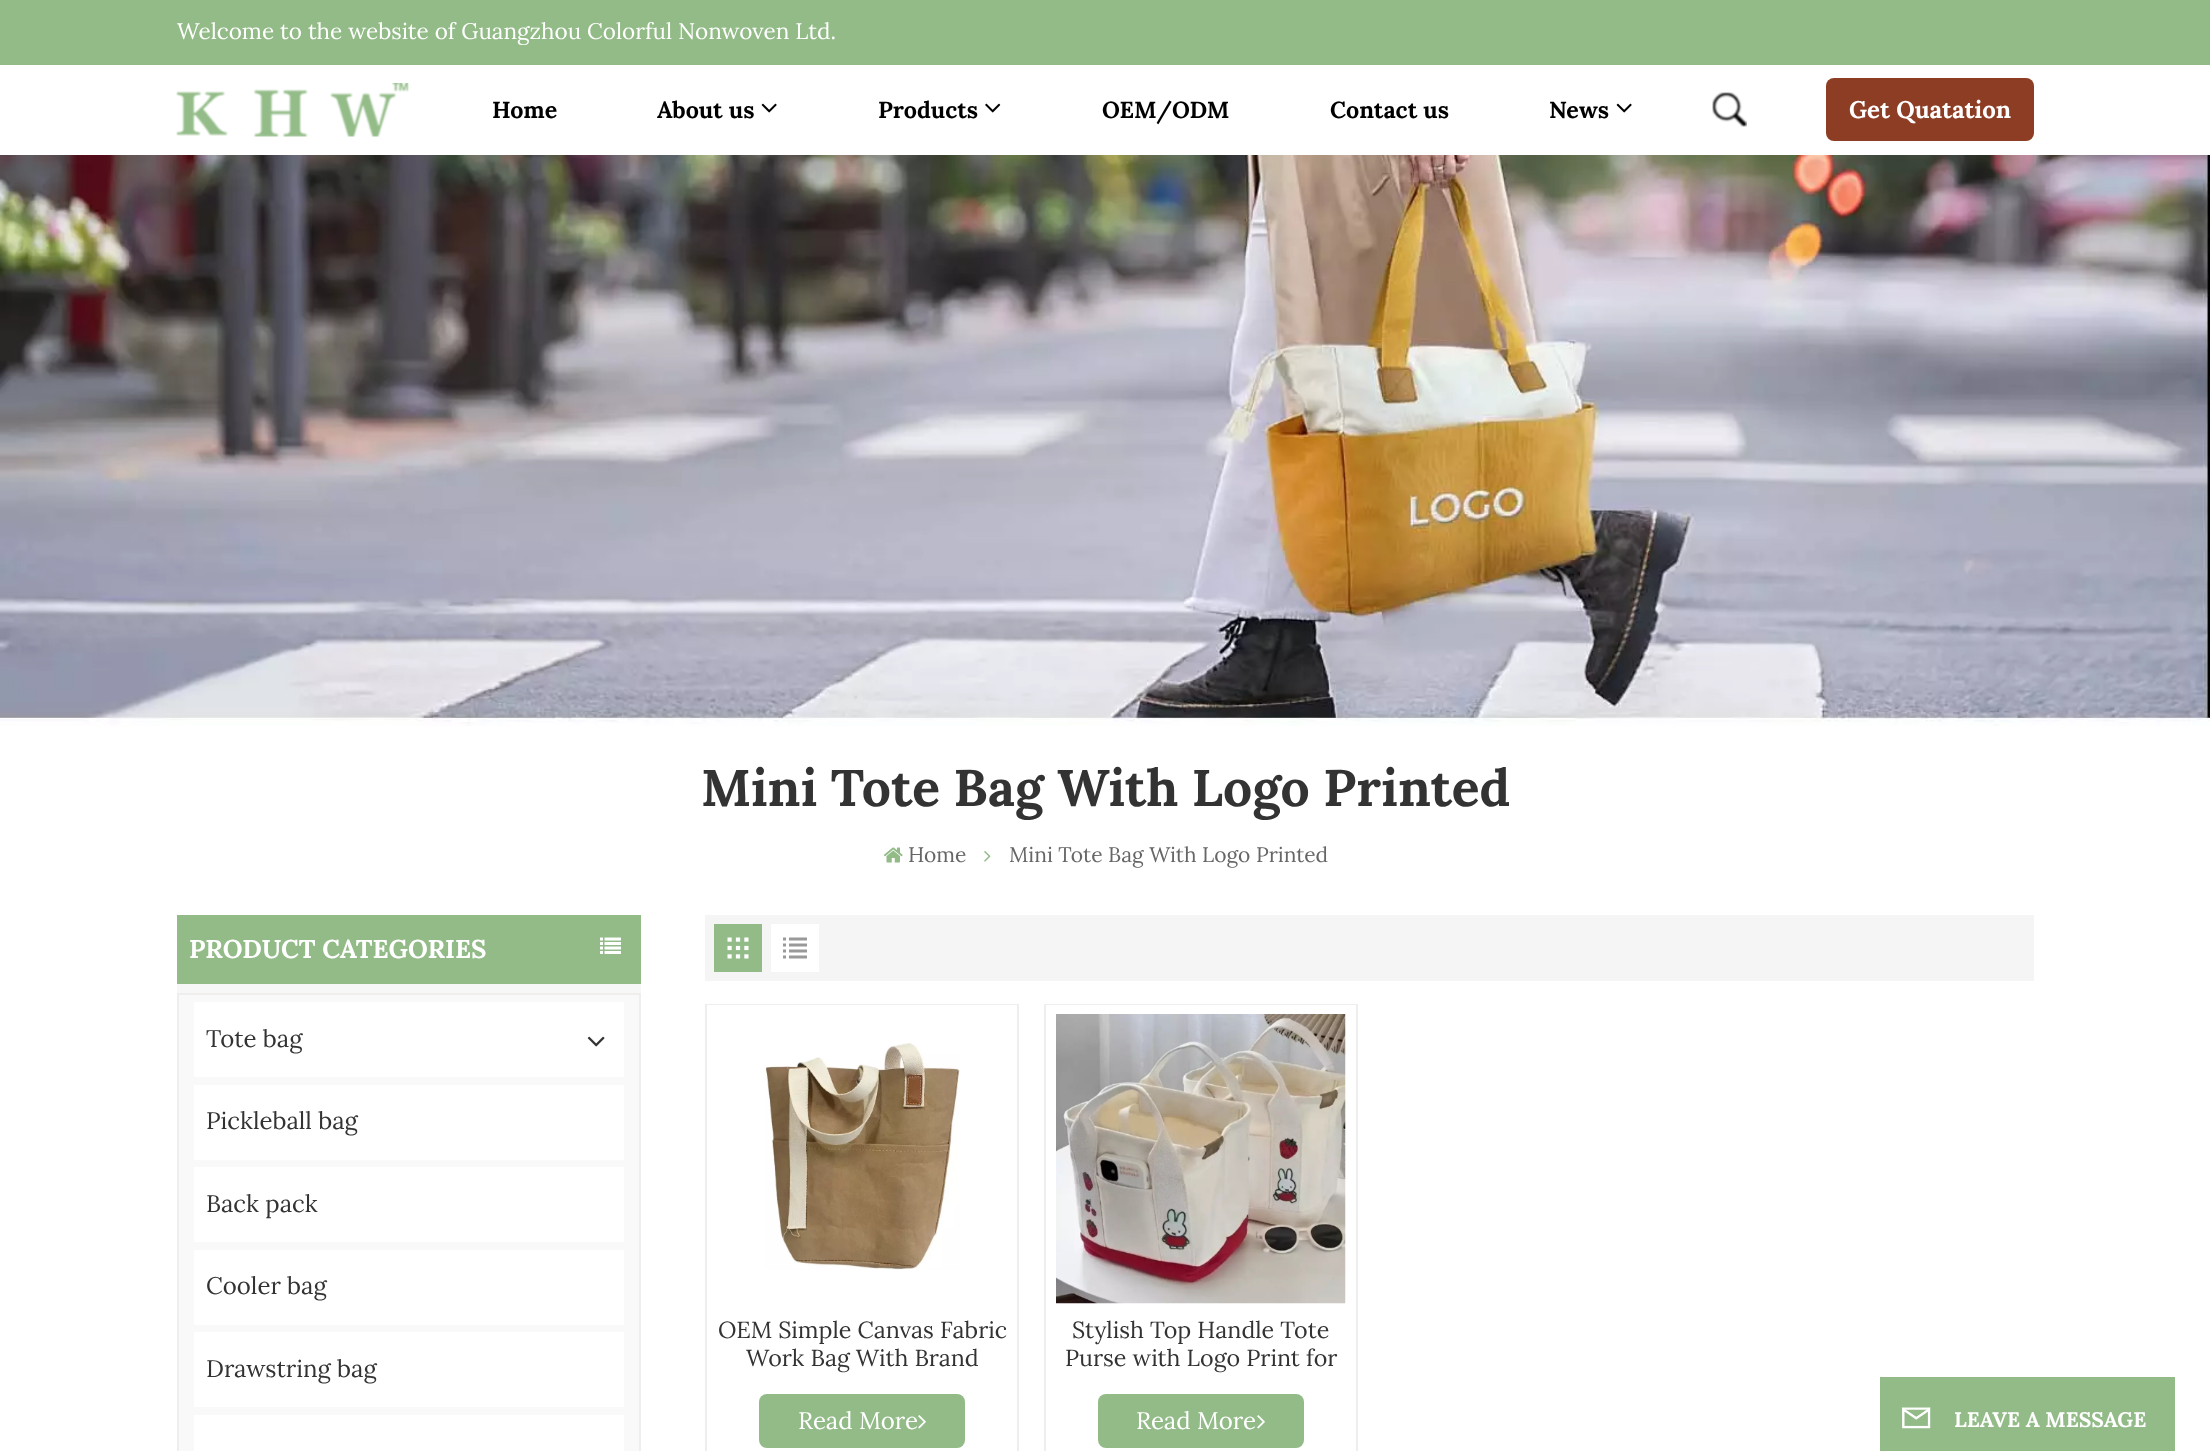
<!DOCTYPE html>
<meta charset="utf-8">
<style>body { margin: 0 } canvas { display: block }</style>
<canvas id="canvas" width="2210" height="1451"></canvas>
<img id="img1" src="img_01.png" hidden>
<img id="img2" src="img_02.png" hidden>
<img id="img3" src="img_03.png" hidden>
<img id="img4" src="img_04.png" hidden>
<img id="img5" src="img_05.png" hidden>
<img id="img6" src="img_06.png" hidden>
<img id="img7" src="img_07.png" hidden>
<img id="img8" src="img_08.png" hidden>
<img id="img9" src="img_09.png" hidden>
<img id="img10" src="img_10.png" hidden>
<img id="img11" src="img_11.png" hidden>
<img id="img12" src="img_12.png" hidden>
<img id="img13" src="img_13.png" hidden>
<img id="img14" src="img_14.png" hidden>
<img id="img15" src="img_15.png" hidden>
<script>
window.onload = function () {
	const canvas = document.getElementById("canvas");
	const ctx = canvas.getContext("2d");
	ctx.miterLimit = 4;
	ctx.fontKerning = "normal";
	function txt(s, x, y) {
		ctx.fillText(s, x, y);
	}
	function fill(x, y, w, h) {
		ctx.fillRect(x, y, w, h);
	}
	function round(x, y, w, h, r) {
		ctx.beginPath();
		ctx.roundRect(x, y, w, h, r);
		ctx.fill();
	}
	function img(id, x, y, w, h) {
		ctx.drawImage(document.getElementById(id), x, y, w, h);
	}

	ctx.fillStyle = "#FFFFFF";
	fill(0, 0, 2210, 1451);
	ctx.fillStyle = "#92BB87";
	fill(0, 0, 2210, 65);
	img("img1", 176, 83, 233, 54);
	img("img2", 761, 103, 16, 10);
	img("img3", 985, 103, 16, 10);
	img("img2", 1616, 103, 16, 10);
	img("img4", 1712, 92, 35, 35);
	ctx.fillStyle = "#8C3D24";
	round(1826, 78, 208, 63, 8);
	img("img5", 0, 155, 2210, 571);
	img("img6", 883, 847, 20, 16);
	img("img7", 984, 851, 7, 11);
	ctx.fillStyle = "#F7F7F7";
	fill(177, 984, 464, 9);
	ctx.fillStyle = "#92BB87";
	fill(177, 915, 464, 69);
	img("img8", 600, 937, 21, 17);
	ctx.fillStyle = "#F9F9F9";
	ctx.beginPath();
	ctx.rect(178, 994, 462, 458);
	ctx.fill();
	ctx.strokeStyle = "#EFEEED";
	ctx.lineWidth = 2;
	ctx.stroke();
	ctx.fillStyle = "#FFFFFF";
	fill(194, 1002, 430, 75);
	img("img9", 587, 1036, 18, 11);
	fill(194, 1085, 430, 75);
	fill(194, 1167, 430, 75);
	fill(194, 1250, 430, 75);
	fill(194, 1332, 430, 75);
	fill(194, 1415, 430, 36);
	ctx.fillStyle = "#F5F5F5";
	fill(705, 915, 1329, 66);
	ctx.fillStyle = "#92BB87";
	fill(714, 924, 48, 48);
	img("img10", 727, 937, 22, 22);
	ctx.fillStyle = "#FFFFFF";
	fill(771, 924, 48, 48);
	img("img11", 783, 937, 24, 22);
	ctx.strokeStyle = "#EEEEEE";
	ctx.strokeRect(706, 1005, 312, 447);
	fill(707, 1005, 310, 1);
	img("img12", 765, 1042, 195, 228);
	ctx.fillStyle = "#92BB87";
	round(759, 1394, 206, 54, 8);
	img("img13", 918, 1415, 8, 14);
	ctx.strokeRect(1045, 1005, 312, 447);
	ctx.fillStyle = "#FFFFFF";
	fill(1046, 1005, 310, 1);
	img("img14", 1056, 1014, 290, 290);
	ctx.fillStyle = "#92BB87";
	round(1098, 1394, 206, 54, 8);
	img("img13", 1257, 1415, 8, 14);
	fill(1880, 1377, 295, 74);
	img("img15", 1902, 1407, 29, 22);
	ctx.font = "22.5px Lora";
	ctx.fillStyle = "#FFFFFF";
	txt("Welcome to the website of Guangzhou Colorful Nonwoven Ltd.", 177, 39);
	ctx.font = "bold 23.25px Lora";
	ctx.fillStyle = "#000000";
	txt("Home", 492, 118);
	txt("About us", 657, 118);
	txt("Products", 878, 118);
	txt("OEM/ODM", 1102, 118);
	txt("Contact us", 1330, 118);
	txt("News", 1549, 118);
	ctx.font = "bold 24px Lora";
	ctx.fillStyle = "#FFFFFF";
	txt("Get Quatation", 1849, 118);
	ctx.font = "bold 51.6px Lora";
	ctx.fillStyle = "#333333";
	txt("Mini Tote Bag With Logo Printed", 701, 806);
	ctx.font = "21px Lora";
	ctx.fillStyle = "#666666";
	txt("Home", 908, 862);
	txt("Mini Tote Bag With Logo Printed", 1009, 862);
	ctx.font = "bold 25.75px Lora";
	ctx.fillStyle = "#FFFFFF";
	txt("PRODUCT CATEGORIES", 189, 958);
	ctx.font = "24px Lora";
	ctx.fillStyle = "#333333";
	txt("Tote bag", 206, 1047);
	txt("Pickleball bag", 206, 1129);
	txt("Back pack", 206, 1212);
	txt("Cooler bag", 206, 1294);
	txt("Drawstring bag", 206, 1377);
	ctx.font = "23.25px Lora";
	txt("OEM Simple Canvas Fabric", 718, 1338);
	txt("Work Bag With Brand", 746, 1366);
	ctx.font = "24px Lora";
	ctx.fillStyle = "#FFFFFF";
	txt("Read More", 798, 1429);
	ctx.font = "23.25px Lora";
	ctx.fillStyle = "#333333";
	txt("Stylish Top Handle Tote", 1072, 1338);
	txt("Purse with Logo Print for", 1065, 1366);
	ctx.font = "24px Lora";
	ctx.fillStyle = "#FFFFFF";
	txt("Read More", 1136, 1429);
	ctx.font = "bold 21px Lora";
	txt("LEAVE A MESSAGE", 1954, 1427);
};
</script>
